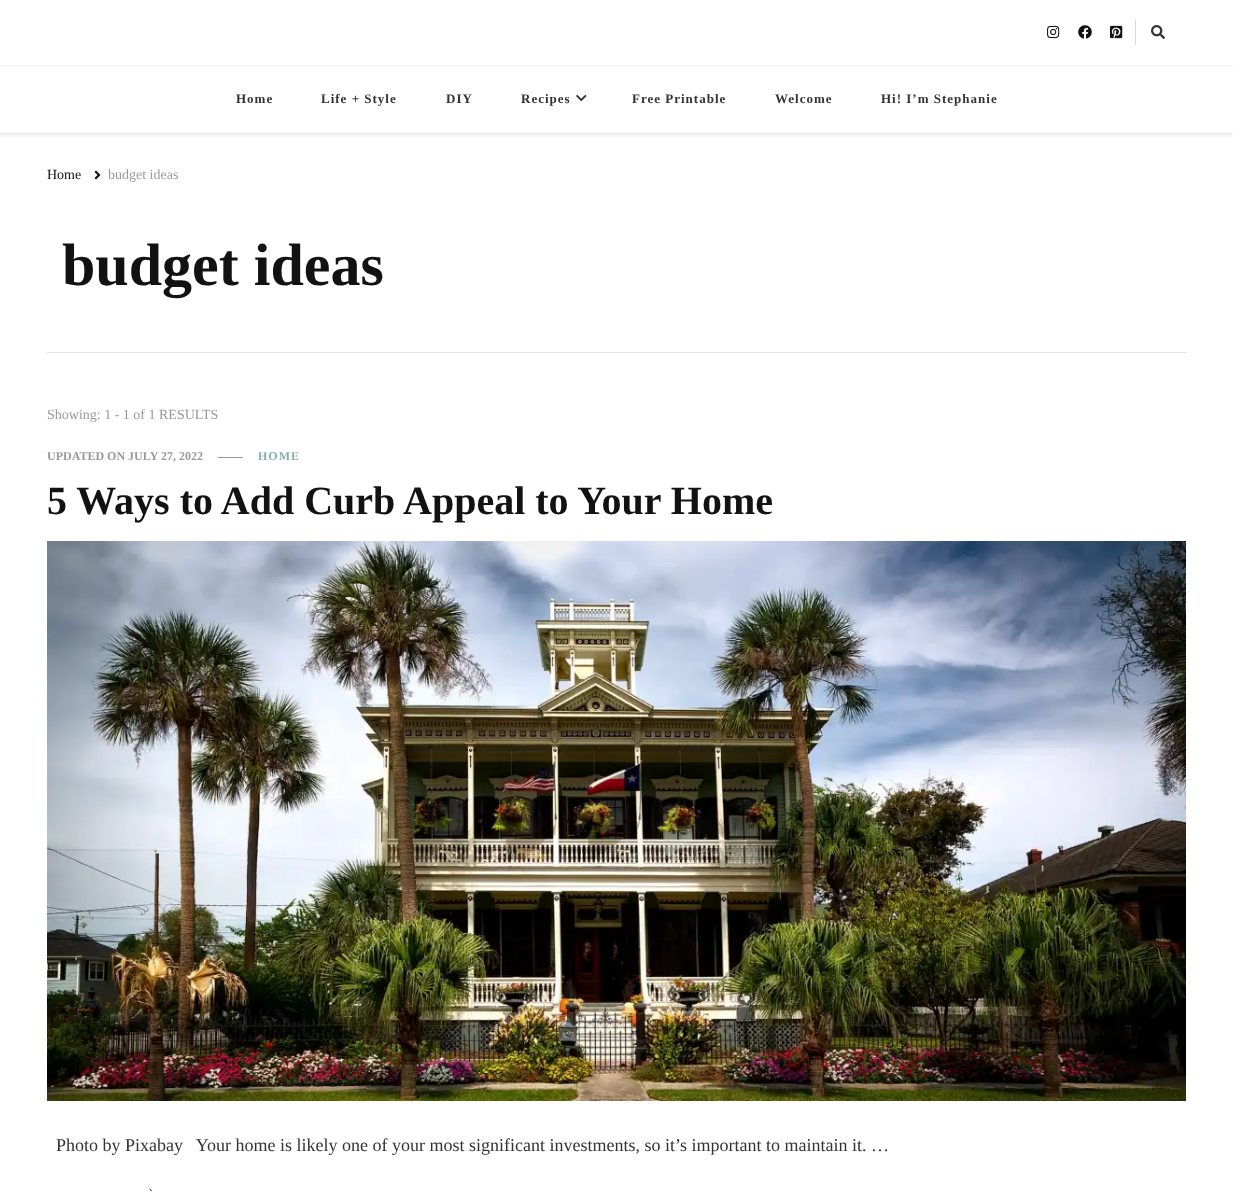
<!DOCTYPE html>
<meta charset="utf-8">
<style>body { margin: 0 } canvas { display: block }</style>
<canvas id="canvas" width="1233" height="1191"></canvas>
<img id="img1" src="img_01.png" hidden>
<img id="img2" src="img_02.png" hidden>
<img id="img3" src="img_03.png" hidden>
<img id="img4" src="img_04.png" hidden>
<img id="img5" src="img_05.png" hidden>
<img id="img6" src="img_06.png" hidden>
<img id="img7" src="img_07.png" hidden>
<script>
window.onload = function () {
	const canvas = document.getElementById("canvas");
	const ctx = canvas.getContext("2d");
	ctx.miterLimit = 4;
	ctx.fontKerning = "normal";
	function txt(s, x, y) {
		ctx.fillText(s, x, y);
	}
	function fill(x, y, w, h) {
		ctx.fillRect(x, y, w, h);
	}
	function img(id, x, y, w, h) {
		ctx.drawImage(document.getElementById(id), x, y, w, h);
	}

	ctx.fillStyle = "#FFFFFF";
	fill(0, 0, 1233, 1191);
	ctx.save();
	ctx.beginPath();
	ctx.rect(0, 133, 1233, 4);
	ctx.clip();
	ctx.fillStyle = "rgba(0, 0, 0, 0.1)";
	ctx.filter = "blur(2px)";
	ctx.beginPath();
	ctx.rect(0, 2, 1233, 133);
	ctx.fill();
	ctx.filter = "none";
	ctx.restore();
	img("img1", 1047, 25, 13, 14);
	img("img2", 1078, 25, 14, 14);
	img("img3", 1110, 25, 13, 14);
	ctx.fillStyle = "#D9D9D9";
	fill(1135, 20, 1, 25);
	img("img4", 1151, 25, 14, 14);
	ctx.fillStyle = "#EDEDED";
	fill(0, 65, 1233, 1);
	img("img5", 576, 94, 11, 8);
	img("img6", 94, 170, 7, 10);
	ctx.fillStyle = "#E6E6E6";
	fill(47, 352, 1140, 1);
	ctx.fillStyle = "#999999";
	fill(218, 457, 25, 1);
	img("img7", 47, 541, 1139, 560);
	ctx.fillStyle = "#121212";
	ctx.beginPath();
	ctx.moveTo(157, 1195.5);
	ctx.lineTo(149, 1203);
	ctx.lineTo(153.5, 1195.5);
	ctx.lineTo(149, 1188);
	ctx.closePath();
	ctx.fill();
	ctx.letterSpacing = "1px";
	ctx.font = "bold 13px Liberation Serif";
	ctx.fillStyle = "#333333";
	txt("Home", 236, 103);
	txt("Life + Style", 321, 103);
	txt("DIY", 446, 103);
	txt("Recipes", 521, 103);
	txt("Free Printable", 632, 103);
	txt("Welcome", 775, 103);
	txt("Hi! I’m Stephanie", 881, 103);
	ctx.letterSpacing = "0px";
	ctx.font = "14px Liberation Serif";
	ctx.fillStyle = "#121212";
	txt("Home", 47, 179);
	ctx.fillStyle = "#999999";
	txt("budget ideas", 108, 179);
	ctx.font = "bold 60px Liberation Serif";
	ctx.fillStyle = "#121212";
	txt("budget ideas", 62, 285);
	ctx.font = "14px Liberation Serif";
	ctx.fillStyle = "#999999";
	txt("Showing: 1 - 1 of 1 RESULTS", 47, 419);
	ctx.font = "bold 12px Liberation Serif";
	txt("UPDATED ON JULY 27, 2022", 47, 460);
	ctx.letterSpacing = "1px";
	ctx.fillStyle = "#87AFAD";
	txt("HOME", 258, 460);
	ctx.letterSpacing = "0px";
	ctx.font = "bold 40px Liberation Serif";
	ctx.fillStyle = "#121212";
	txt("5 Ways to Add Curb Appeal to Your Home", 47, 514);
	ctx.font = "18px Liberation Serif";
	ctx.fillStyle = "#333333";
	txt("Photo by Pixabay   Your home is likely one of your most significant investments, so it’s important to maintain it. …", 56, 1151);
};
</script>
